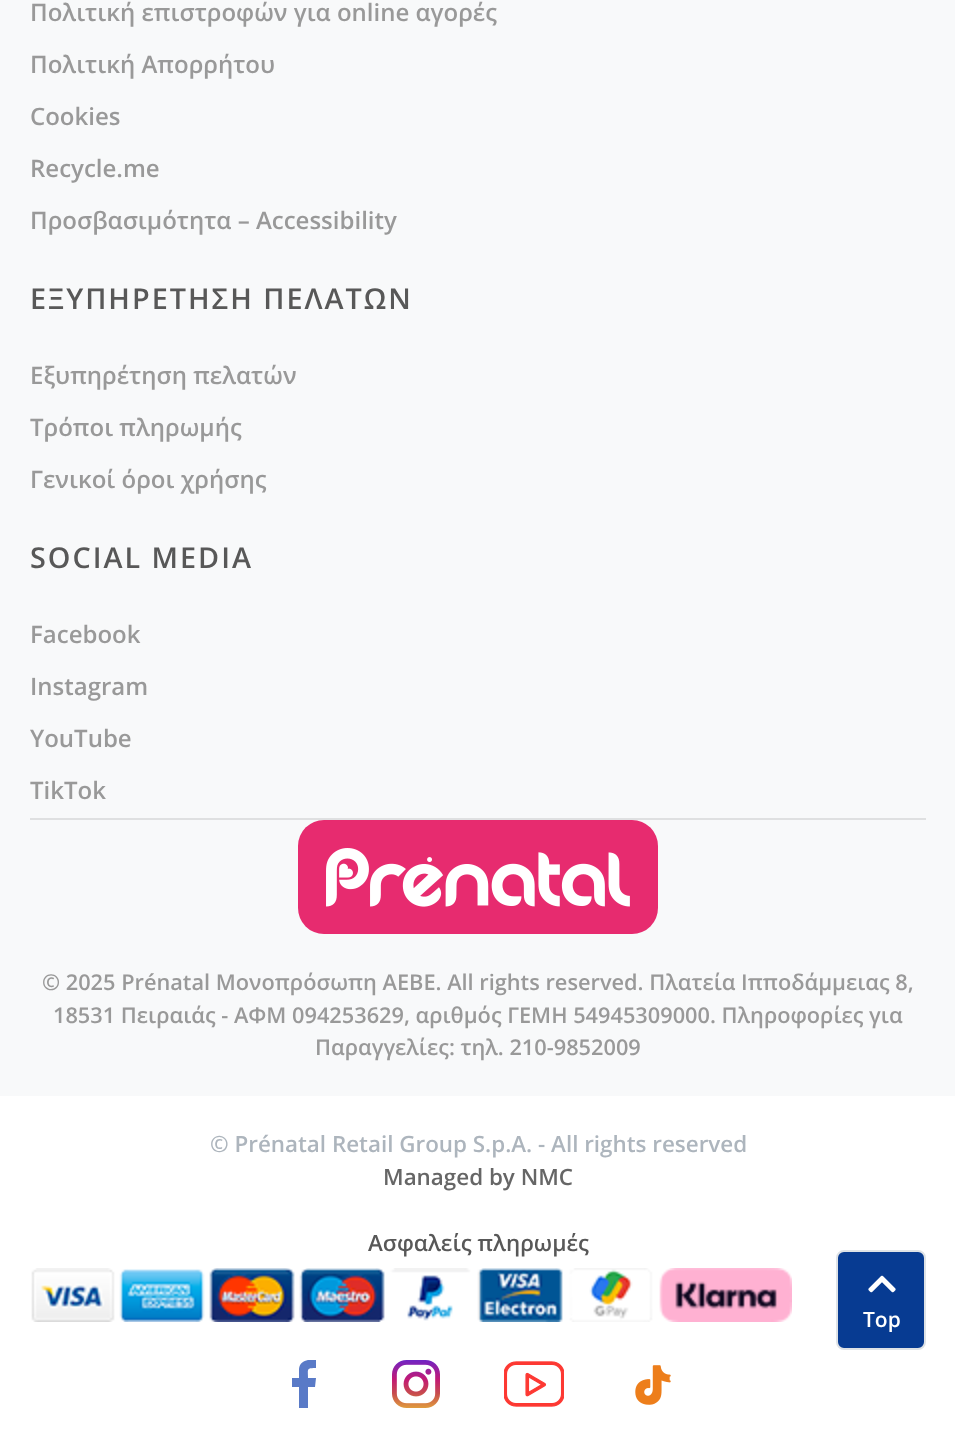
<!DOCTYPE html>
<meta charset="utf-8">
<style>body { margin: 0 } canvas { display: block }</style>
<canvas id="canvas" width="955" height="1445"></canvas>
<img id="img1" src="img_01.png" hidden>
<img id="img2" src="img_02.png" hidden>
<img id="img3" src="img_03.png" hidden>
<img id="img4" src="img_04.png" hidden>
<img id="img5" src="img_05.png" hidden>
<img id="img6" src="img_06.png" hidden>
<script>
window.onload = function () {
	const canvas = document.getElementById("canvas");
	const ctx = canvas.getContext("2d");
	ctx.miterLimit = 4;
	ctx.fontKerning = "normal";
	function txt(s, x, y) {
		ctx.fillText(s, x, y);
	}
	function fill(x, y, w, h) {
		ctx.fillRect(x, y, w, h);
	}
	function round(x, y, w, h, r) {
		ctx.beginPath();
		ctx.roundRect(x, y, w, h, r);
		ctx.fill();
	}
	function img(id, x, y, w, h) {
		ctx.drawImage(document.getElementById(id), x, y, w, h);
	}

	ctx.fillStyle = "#FFFFFF";
	fill(0, 0, 955, 1445);
	ctx.fillStyle = "#F8F9FA";
	fill(0, 0, 955, 1096);
	ctx.fillStyle = "#DFE0E1";
	fill(30, 818, 896, 2);
	ctx.fillStyle = "#E72B6F";
	round(298, 820, 360, 114, 26);
	img("img1", 326, 848, 304, 59);
	img("img2", 31, 1268, 761, 54);
	ctx.save();
	ctx.beginPath();
	ctx.rect(280, 1360, 48, 48);
	ctx.clip();
	ctx.fillStyle = "#597AC7";
	ctx.beginPath();
	ctx.moveTo(299, 1408);
	ctx.lineTo(299, 1387);
	ctx.lineTo(292, 1387);
	ctx.lineTo(292, 1378);
	ctx.lineTo(299, 1378);
	ctx.lineTo(299, 1369);
	ctx.bezierCurveTo(300, 1360, 309, 1359, 316, 1360);
	ctx.lineTo(316, 1368);
	ctx.bezierCurveTo(306, 1368, 308, 1369, 308, 1378);
	ctx.lineTo(316, 1378);
	ctx.lineTo(315, 1387);
	ctx.lineTo(308, 1387);
	ctx.lineTo(308, 1408);
	ctx.fill();
	ctx.restore();
	img("img3", 392, 1360, 48, 48);
	img("img4", 504, 1361, 60, 46);
	img("img5", 635, 1365, 36, 40);
	ctx.fillStyle = "#073B92";
	ctx.beginPath();
	ctx.roundRect(837, 1251, 88, 98, 7);
	ctx.fill();
	ctx.strokeStyle = "#DEE2E6";
	ctx.lineWidth = 2;
	ctx.stroke();
	img("img6", 868, 1275, 28, 18);
	ctx.font = "600 24px Open Sans";
	ctx.fillStyle = "#999999";
	txt("Πολιτική επιστροφών για online αγορές", 30, 21);
	txt("Πολιτική Απορρήτου", 30, 73);
	txt("Cookies", 30, 125);
	txt("Recycle.me", 30, 177);
	txt("Προσβασιμότητα – Accessibility", 30, 229);
	ctx.letterSpacing = "2px";
	ctx.font = "600 28.75px Open Sans";
	ctx.fillStyle = "#585858";
	txt("ΕΞΥΠΗΡΕΤΗΣΗ ΠΕΛΑΤΩΝ", 30, 309);
	ctx.letterSpacing = "0px";
	ctx.font = "600 24px Open Sans";
	ctx.fillStyle = "#999999";
	txt("Εξυπηρέτηση πελατών", 30, 384);
	txt("Τρόποι πληρωμής", 30, 436);
	txt("Γενικοί όροι χρήσης", 30, 488);
	ctx.letterSpacing = "2px";
	ctx.font = "600 28.75px Open Sans";
	ctx.fillStyle = "#585858";
	txt("SOCIAL MEDIA", 30, 568);
	ctx.letterSpacing = "0px";
	ctx.font = "600 24px Open Sans";
	ctx.fillStyle = "#999999";
	txt("Facebook", 30, 643);
	txt("Instagram", 30, 695);
	txt("YouTube", 30, 747);
	txt("TikTok", 30, 799);
	ctx.font = "600 21.75px Open Sans";
	txt("© 2025 Prénatal Μονοπρόσωπη ΑΕΒΕ. All rights reserved. Πλατεία Ιπποδάμμειας 8,", 42, 990);
	txt("18531 Πειραιάς - ΑΦΜ 094253629, αριθμός ΓΕΜΗ 54945309000. Πληροφορίες για", 53, 1023);
	txt("Παραγγελίες: τηλ. 210-9852009", 315, 1055);
	ctx.font = "600 22.4px Open Sans";
	ctx.fillStyle = "#ADB5BD";
	txt("© Prénatal Retail Group S.p.A. - All rights reserved", 210, 1152);
	ctx.fillStyle = "#666666";
	txt("Managed by NMC", 383, 1185);
	ctx.fillStyle = "#585858";
	txt("Ασφαλείς πληρωμές", 368, 1251);
	ctx.font = "600 21px Open Sans";
	ctx.fillStyle = "#FFFFFF";
	txt("Top", 863, 1327);
};
</script>
